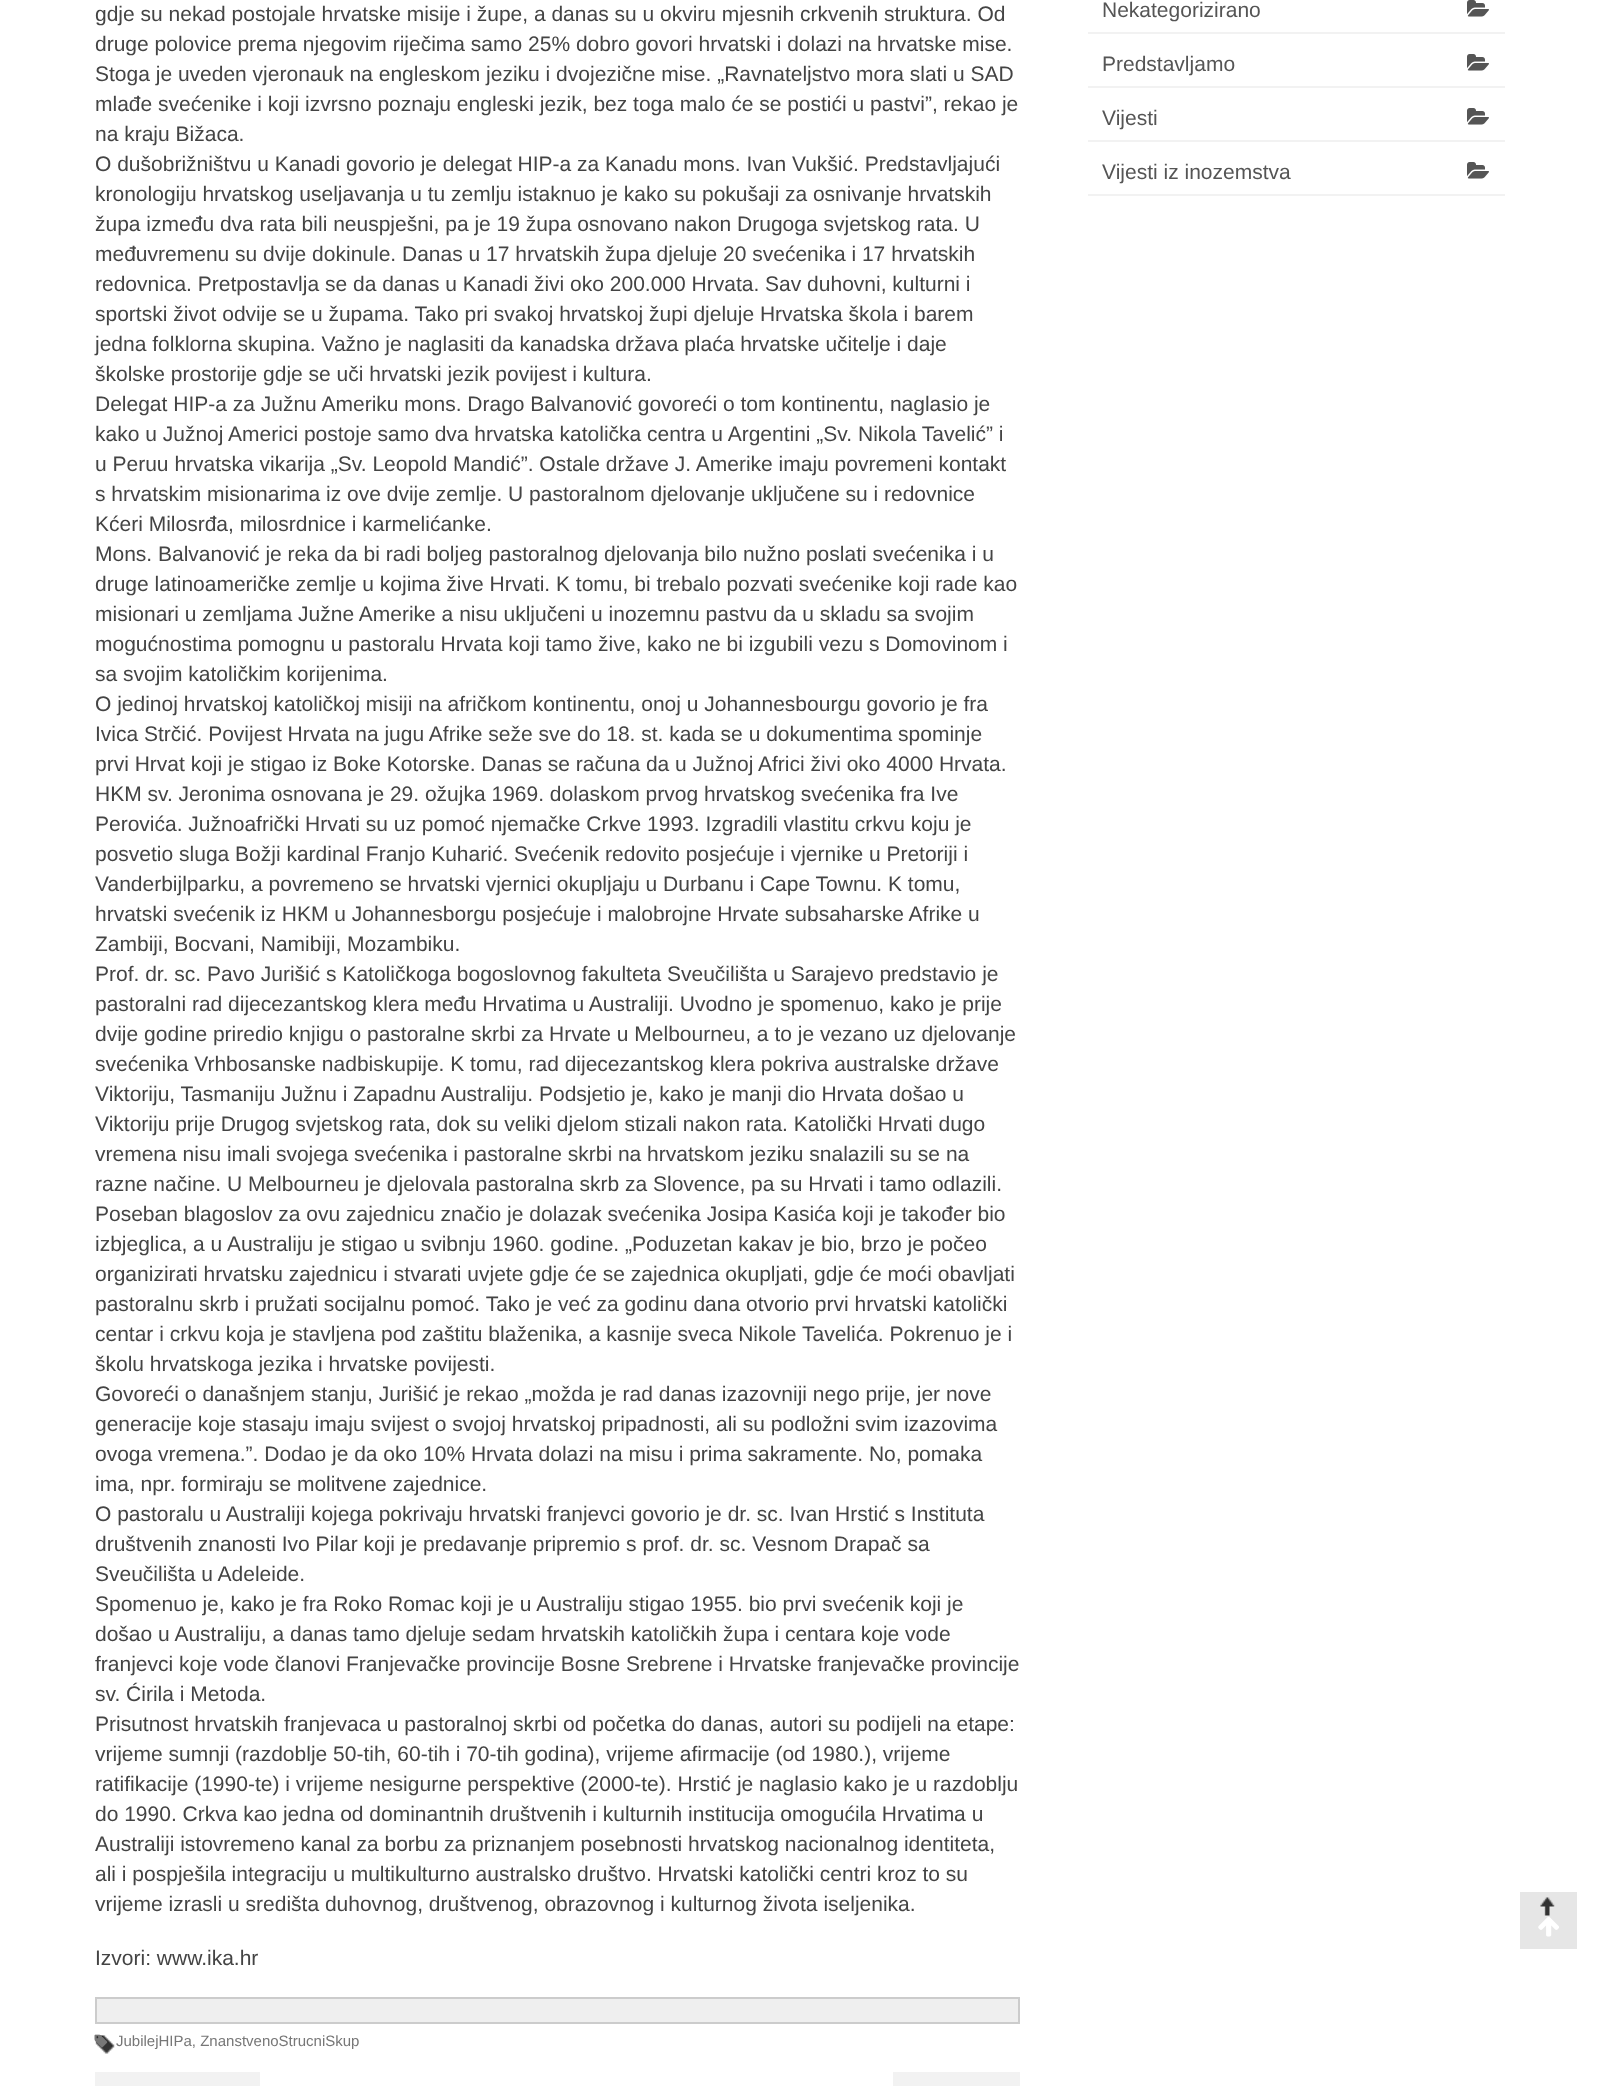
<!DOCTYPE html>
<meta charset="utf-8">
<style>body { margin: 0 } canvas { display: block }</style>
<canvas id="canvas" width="1599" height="2086"></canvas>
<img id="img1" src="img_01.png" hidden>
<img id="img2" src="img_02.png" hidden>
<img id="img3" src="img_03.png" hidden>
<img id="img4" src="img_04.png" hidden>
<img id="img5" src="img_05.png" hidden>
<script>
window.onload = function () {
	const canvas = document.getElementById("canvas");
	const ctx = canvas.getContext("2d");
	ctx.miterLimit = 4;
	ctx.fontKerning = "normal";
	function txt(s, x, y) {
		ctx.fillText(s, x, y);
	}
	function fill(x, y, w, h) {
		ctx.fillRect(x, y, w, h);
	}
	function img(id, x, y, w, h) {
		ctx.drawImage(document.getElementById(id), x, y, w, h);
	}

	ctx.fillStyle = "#FFFFFF";
	fill(0, 0, 1599, 2086);
	ctx.fillStyle = "#EFEFEF";
	ctx.beginPath();
	ctx.rect(96, 1998, 923, 25);
	ctx.fill();
	ctx.strokeStyle = "#CCCCCC";
	ctx.lineWidth = 2;
	ctx.stroke();
	img("img1", 95, 2035, 20, 19);
	img("img2", 94, 2034, 14, 14);
	ctx.fillStyle = "#F2F2F2";
	fill(95, 2072, 165, 14);
	fill(893, 2072, 127, 14);
	fill(1088, 32, 417, 2);
	img("img3", 1467, 0, 22, 17);
	fill(1088, 86, 417, 2);
	img("img3", 1467, 54, 22, 17);
	fill(1088, 140, 417, 2);
	img("img3", 1467, 108, 22, 17);
	fill(1088, 194, 417, 2);
	img("img3", 1467, 162, 22, 17);
	ctx.fillStyle = "#E6E6E6";
	fill(1520, 1892, 57, 57);
	img("img4", 1540, 1897, 15, 20);
	img("img5", 1538, 1917, 21, 20);
	ctx.font = "21px Liberation Sans";
	ctx.fillStyle = "#444444";
	txt("gdje su nekad postojale hrvatske misije i župe, a danas su u okviru mjesnih crkvenih struktura. Od", 95, 21);
	txt("druge polovice prema njegovim riječima samo 25% dobro govori hrvatski i dolazi na hrvatske mise.", 95, 51);
	txt("Stoga je uveden vjeronauk na engleskom jeziku i dvojezične mise. „Ravnateljstvo mora slati u SAD", 95, 81);
	txt("mlađe svećenike i koji izvrsno poznaju engleski jezik, bez toga malo će se postići u pastvi”, rekao je", 95, 111);
	txt("na kraju Bižaca.", 95, 141);
	txt("O dušobrižništvu u Kanadi govorio je delegat HIP-a za Kanadu mons. Ivan Vukšić. Predstavljajući", 95, 171);
	txt("kronologiju hrvatskog useljavanja u tu zemlju istaknuo je kako su pokušaji za osnivanje hrvatskih", 95, 201);
	txt("župa između dva rata bili neuspješni, pa je 19 župa osnovano nakon Drugoga svjetskog rata. U", 95, 231);
	txt("međuvremenu su dvije dokinule. Danas u 17 hrvatskih župa djeluje 20 svećenika i 17 hrvatskih", 95, 261);
	txt("redovnica. Pretpostavlja se da danas u Kanadi živi oko 200.000 Hrvata. Sav duhovni, kulturni i", 95, 291);
	txt("sportski život odvije se u župama. Tako pri svakoj hrvatskoj župi djeluje Hrvatska škola i barem", 95, 321);
	txt("jedna folklorna skupina. Važno je naglasiti da kanadska država plaća hrvatske učitelje i daje", 95, 351);
	txt("školske prostorije gdje se uči hrvatski jezik povijest i kultura.", 95, 381);
	txt("Delegat HIP-a za Južnu Ameriku mons. Drago Balvanović govoreći o tom kontinentu, naglasio je", 95, 411);
	txt("kako u Južnoj Americi postoje samo dva hrvatska katolička centra u Argentini „Sv. Nikola Tavelić” i", 95, 441);
	txt("u Peruu hrvatska vikarija „Sv. Leopold Mandić”. Ostale države J. Amerike imaju povremeni kontakt", 95, 471);
	txt("s hrvatskim misionarima iz ove dvije zemlje. U pastoralnom djelovanje uključene su i redovnice", 95, 501);
	txt("Kćeri Milosrđa, milosrdnice i karmelićanke.", 95, 531);
	txt("Mons. Balvanović je reka da bi radi boljeg pastoralnog djelovanja bilo nužno poslati svećenika i u", 95, 561);
	txt("druge latinoameričke zemlje u kojima žive Hrvati. K tomu, bi trebalo pozvati svećenike koji rade kao", 95, 591);
	txt("misionari u zemljama Južne Amerike a nisu uključeni u inozemnu pastvu da u skladu sa svojim", 95, 621);
	txt("mogućnostima pomognu u pastoralu Hrvata koji tamo žive, kako ne bi izgubili vezu s Domovinom i", 95, 651);
	txt("sa svojim katoličkim korijenima.", 95, 681);
	txt("O jedinoj hrvatskoj katoličkoj misiji na afričkom kontinentu, onoj u Johannesbourgu govorio je fra", 95, 711);
	txt("Ivica Strčić. Povijest Hrvata na jugu Afrike seže sve do 18. st. kada se u dokumentima spominje", 95, 741);
	txt("prvi Hrvat koji je stigao iz Boke Kotorske. Danas se računa da u Južnoj Africi živi oko 4000 Hrvata.", 95, 771);
	txt("HKM sv. Jeronima osnovana je 29. ožujka 1969. dolaskom prvog hrvatskog svećenika fra Ive", 95, 801);
	txt("Perovića. Južnoafrički Hrvati su uz pomoć njemačke Crkve 1993. Izgradili vlastitu crkvu koju je", 95, 831);
	txt("posvetio sluga Božji kardinal Franjo Kuharić. Svećenik redovito posjećuje i vjernike u Pretoriji i", 95, 861);
	txt("Vanderbijlparku, a povremeno se hrvatski vjernici okupljaju u Durbanu i Cape Townu. K tomu,", 95, 891);
	txt("hrvatski svećenik iz HKM u Johannesborgu posjećuje i malobrojne Hrvate subsaharske Afrike u", 95, 921);
	txt("Zambiji, Bocvani, Namibiji, Mozambiku.", 95, 951);
	txt("Prof. dr. sc. Pavo Jurišić s Katoličkoga bogoslovnog fakulteta Sveučilišta u Sarajevo predstavio je", 95, 981);
	txt("pastoralni rad dijecezantskog klera među Hrvatima u Australiji. Uvodno je spomenuo, kako je prije", 95, 1011);
	txt("dvije godine priredio knjigu o pastoralne skrbi za Hrvate u Melbourneu, a to je vezano uz djelovanje", 95, 1041);
	txt("svećenika Vrhbosanske nadbiskupije. K tomu, rad dijecezantskog klera pokriva australske države", 95, 1071);
	txt("Viktoriju, Tasmaniju Južnu i Zapadnu Australiju. Podsjetio je, kako je manji dio Hrvata došao u", 95, 1101);
	txt("Viktoriju prije Drugog svjetskog rata, dok su veliki djelom stizali nakon rata. Katolički Hrvati dugo", 95, 1131);
	txt("vremena nisu imali svojega svećenika i pastoralne skrbi na hrvatskom jeziku snalazili su se na", 95, 1161);
	txt("razne načine. U Melbourneu je djelovala pastoralna skrb za Slovence, pa su Hrvati i tamo odlazili.", 95, 1191);
	txt("Poseban blagoslov za ovu zajednicu značio je dolazak svećenika Josipa Kasića koji je također bio", 95, 1221);
	txt("izbjeglica, a u Australiju je stigao u svibnju 1960. godine. „Poduzetan kakav je bio, brzo je počeo", 95, 1251);
	txt("organizirati hrvatsku zajednicu i stvarati uvjete gdje će se zajednica okupljati, gdje će moći obavljati", 95, 1281);
	txt("pastoralnu skrb i pružati socijalnu pomoć. Tako je već za godinu dana otvorio prvi hrvatski katolički", 95, 1311);
	txt("centar i crkvu koja je stavljena pod zaštitu blaženika, a kasnije sveca Nikole Tavelića. Pokrenuo je i", 95, 1341);
	txt("školu hrvatskoga jezika i hrvatske povijesti.", 95, 1371);
	txt("Govoreći o današnjem stanju, Jurišić je rekao „možda je rad danas izazovniji nego prije, jer nove", 95, 1401);
	txt("generacije koje stasaju imaju svijest o svojoj hrvatskoj pripadnosti, ali su podložni svim izazovima", 95, 1431);
	txt("ovoga vremena.”. Dodao je da oko 10% Hrvata dolazi na misu i prima sakramente. No, pomaka", 95, 1461);
	txt("ima, npr. formiraju se molitvene zajednice.", 95, 1491);
	txt("O pastoralu u Australiji kojega pokrivaju hrvatski franjevci govorio je dr. sc. Ivan Hrstić s Instituta", 95, 1521);
	txt("društvenih znanosti Ivo Pilar koji je predavanje pripremio s prof. dr. sc. Vesnom Drapač sa", 95, 1551);
	txt("Sveučilišta u Adeleide.", 95, 1581);
	txt("Spomenuo je, kako je fra Roko Romac koji je u Australiju stigao 1955. bio prvi svećenik koji je", 95, 1611);
	txt("došao u Australiju, a danas tamo djeluje sedam hrvatskih katoličkih župa i centara koje vode", 95, 1641);
	txt("franjevci koje vode članovi Franjevačke provincije Bosne Srebrene i Hrvatske franjevačke provincije", 95, 1671);
	txt("sv. Ćirila i Metoda.", 95, 1701);
	txt("Prisutnost hrvatskih franjevaca u pastoralnoj skrbi od početka do danas, autori su podijeli na etape:", 95, 1731);
	txt("vrijeme sumnji (razdoblje 50-tih, 60-tih i 70-tih godina), vrijeme afirmacije (od 1980.), vrijeme", 95, 1761);
	txt("ratifikacije (1990-te) i vrijeme nesigurne perspektive (2000-te). Hrstić je naglasio kako je u razdoblju", 95, 1791);
	txt("do 1990. Crkva kao jedna od dominantnih društvenih i kulturnih institucija omogućila Hrvatima u", 95, 1821);
	txt("Australiji istovremeno kanal za borbu za priznanjem posebnosti hrvatskog nacionalnog identiteta,", 95, 1851);
	txt("ali i pospješila integraciju u multikulturno australsko društvo. Hrvatski katolički centri kroz to su", 95, 1881);
	txt("vrijeme izrasli u središta duhovnog, društvenog, obrazovnog i kulturnog života iseljenika.", 95, 1911);
	txt("Izvori: www.ika.hr", 95, 1965);
	ctx.font = "15px Liberation Sans";
	ctx.fillStyle = "#777777";
	txt("JubilejHIPa, ZnanstvenoStrucniSkup", 116, 2046);
	ctx.font = "21px Liberation Sans";
	ctx.fillStyle = "#555555";
	txt("Nekategorizirano", 1102, 17);
	txt("Predstavljamo", 1102, 71);
	txt("Vijesti", 1102, 125);
	txt("Vijesti iz inozemstva", 1102, 179);
};
</script>
